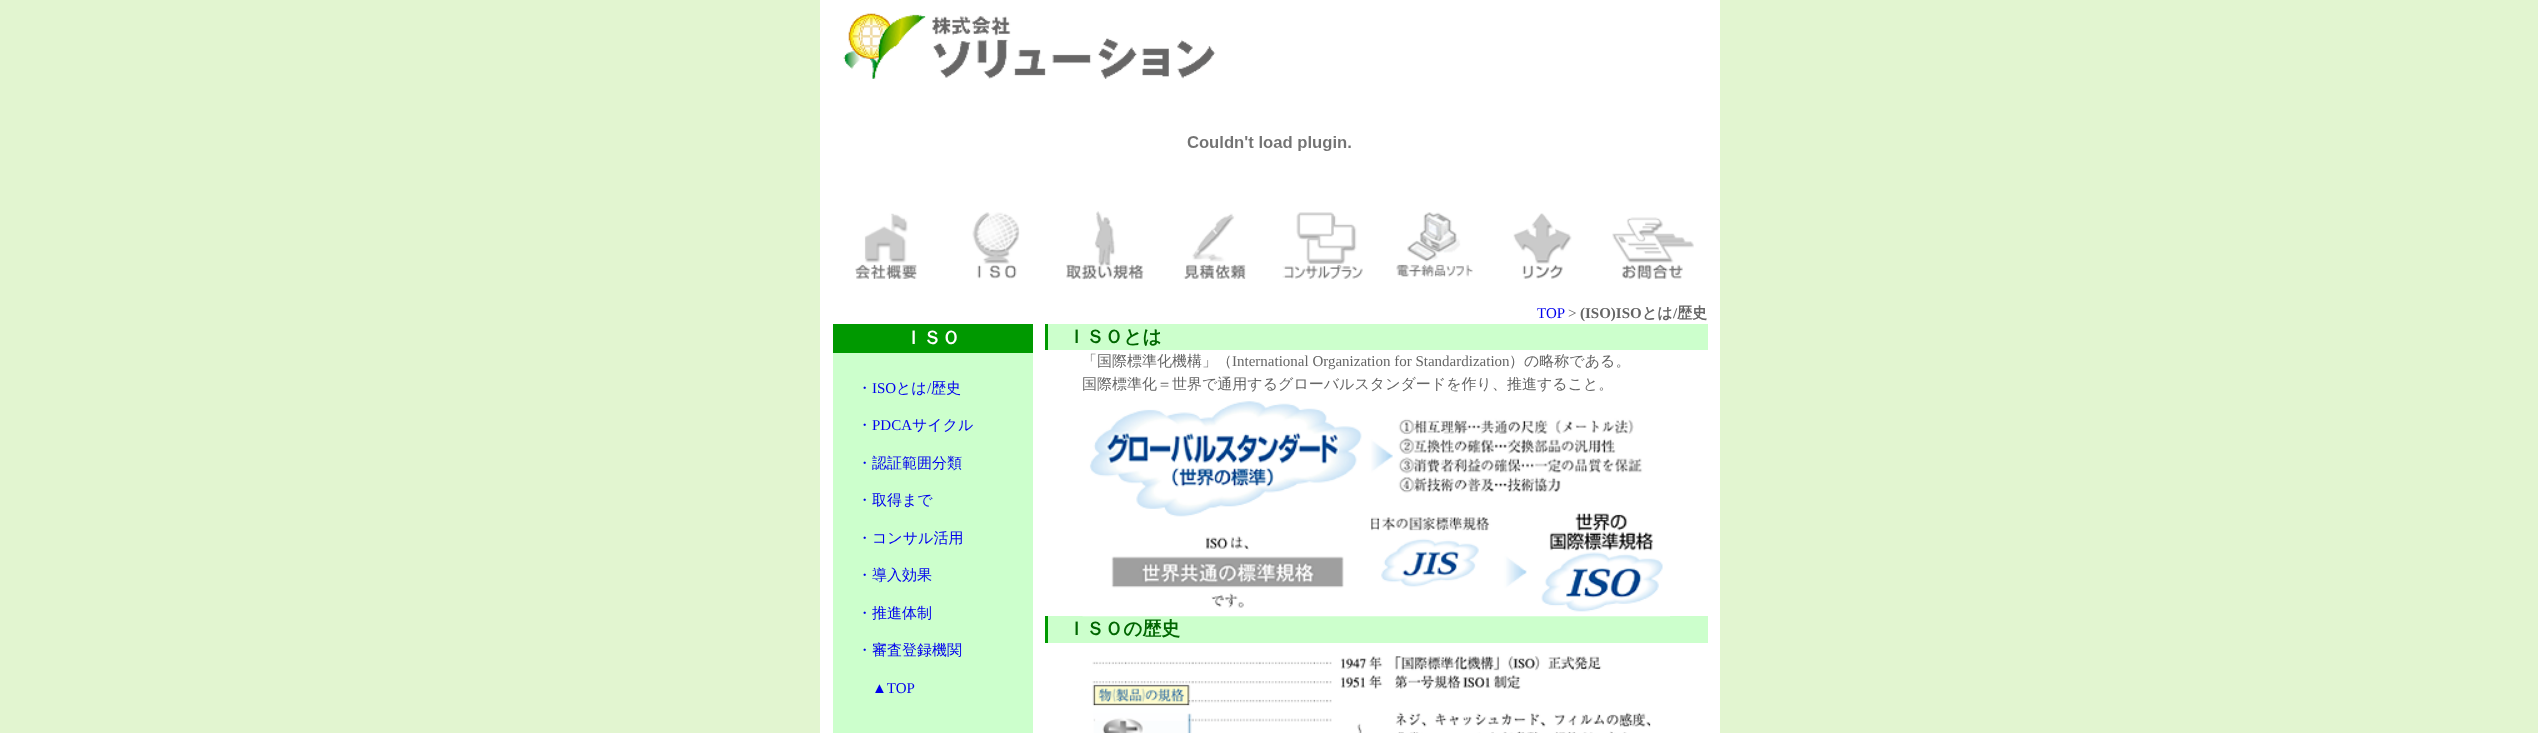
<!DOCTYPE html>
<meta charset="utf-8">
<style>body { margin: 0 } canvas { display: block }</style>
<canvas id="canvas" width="2538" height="733"></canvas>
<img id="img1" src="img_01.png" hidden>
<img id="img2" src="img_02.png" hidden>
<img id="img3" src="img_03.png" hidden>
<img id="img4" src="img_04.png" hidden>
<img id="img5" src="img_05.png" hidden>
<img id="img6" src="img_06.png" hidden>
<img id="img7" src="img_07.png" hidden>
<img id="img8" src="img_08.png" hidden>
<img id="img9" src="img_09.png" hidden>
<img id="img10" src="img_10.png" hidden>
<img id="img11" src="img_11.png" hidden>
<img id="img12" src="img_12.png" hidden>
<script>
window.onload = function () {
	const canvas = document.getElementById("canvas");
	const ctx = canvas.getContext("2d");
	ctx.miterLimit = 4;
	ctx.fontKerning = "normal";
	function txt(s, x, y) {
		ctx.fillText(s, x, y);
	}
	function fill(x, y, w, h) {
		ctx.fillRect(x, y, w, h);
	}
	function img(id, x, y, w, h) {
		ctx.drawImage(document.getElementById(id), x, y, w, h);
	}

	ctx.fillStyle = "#E2F5D0";
	fill(0, 0, 2538, 733);
	ctx.fillStyle = "#FFFFFF";
	fill(820, 0, 900, 733);
	img("img1", 843, 13, 373, 66);
	img("img2", 1187, 136, 164, 15);
	img("img3", 855, 213, 62, 66);
	img("img4", 972, 212, 48, 67);
	img("img5", 1066, 211, 78, 69);
	img("img6", 1183, 213, 63, 66);
	img("img7", 1282, 212, 81, 67);
	img("img8", 1396, 212, 77, 65);
	img("img9", 1513, 213, 59, 66);
	img("img10", 1612, 217, 82, 63);
	ctx.fillStyle = "#CCFFCC";
	fill(833, 353, 200, 380);
	ctx.fillStyle = "#009900";
	fill(833, 324, 200, 29);
	fill(1045, 324, 3, 26);
	ctx.fillStyle = "#CCFFCC";
	fill(1048, 324, 660, 26);
	fill(1048, 616, 660, 27);
	img("img11", 1082, 401, 588, 216);
	ctx.fillStyle = "#009900";
	fill(1045, 616, 3, 27);
	img("img12", 1092, 656, 559, 77);
	ctx.font = "15px Liberation Serif";
	ctx.fillStyle = "#0000EE";
	txt("TOP", 1537, 318);
	ctx.fillStyle = "#666666";
	txt(">", 1568, 318);
	ctx.font = "bold 15px Liberation Serif";
	txt("(ISO)ISO", 1580, 318);
	ctx.font = "bold 15px WenQuanYi Zen Hei";
	txt("とは", 1642, 318);
	ctx.font = "bold 15px Liberation Serif";
	txt("/", 1673, 318);
	ctx.font = "bold 15px WenQuanYi Zen Hei";
	txt("歴史", 1677, 318);
	ctx.font = "bold 18.75px WenQuanYi Zen Hei";
	ctx.fillStyle = "#FFFFFF";
	txt("ＩＳＯ", 904, 344);
	ctx.font = "500 15px WenQuanYi Zen Hei";
	ctx.fillStyle = "#0000EE";
	txt("・", 857, 393);
	ctx.font = "15px Liberation Serif";
	txt("ISO", 872, 393);
	ctx.font = "500 15px WenQuanYi Zen Hei";
	txt("とは", 896, 393);
	ctx.font = "15px Liberation Serif";
	txt("/", 927, 393);
	ctx.font = "500 15px WenQuanYi Zen Hei";
	txt("歴史", 931, 393);
	txt("・", 857, 430);
	ctx.font = "15px Liberation Serif";
	txt("PDCA", 872, 430);
	ctx.font = "500 15px WenQuanYi Zen Hei";
	txt("サイクル", 912, 430);
	txt("・認証範囲分類", 857, 468);
	txt("・取得まで", 857, 505);
	txt("・コンサル活用", 857, 543);
	txt("・導入効果", 857, 580);
	txt("・推進体制", 857, 618);
	txt("・審査登録機関", 857, 655);
	ctx.font = "15px Liberation Serif";
	txt("▲TOP", 872, 693);
	ctx.font = "bold 18.75px WenQuanYi Zen Hei";
	ctx.fillStyle = "#006600";
	txt("ＩＳＯとは", 1067, 343);
	ctx.font = "500 15px WenQuanYi Zen Hei";
	ctx.fillStyle = "#666666";
	txt("「国際標準化機構」（", 1082, 366);
	ctx.font = "15px Liberation Serif";
	txt("International Organization for Standardization", 1232, 366);
	ctx.font = "500 15px WenQuanYi Zen Hei";
	txt("）の略称である。", 1509, 366);
	txt("国際標準化＝世界で通用するグローバルスタンダードを作り、推進すること。", 1082, 389);
	ctx.font = "bold 18.75px WenQuanYi Zen Hei";
	ctx.fillStyle = "#006600";
	txt("ＩＳＯの歴史", 1067, 635);
};
</script>
